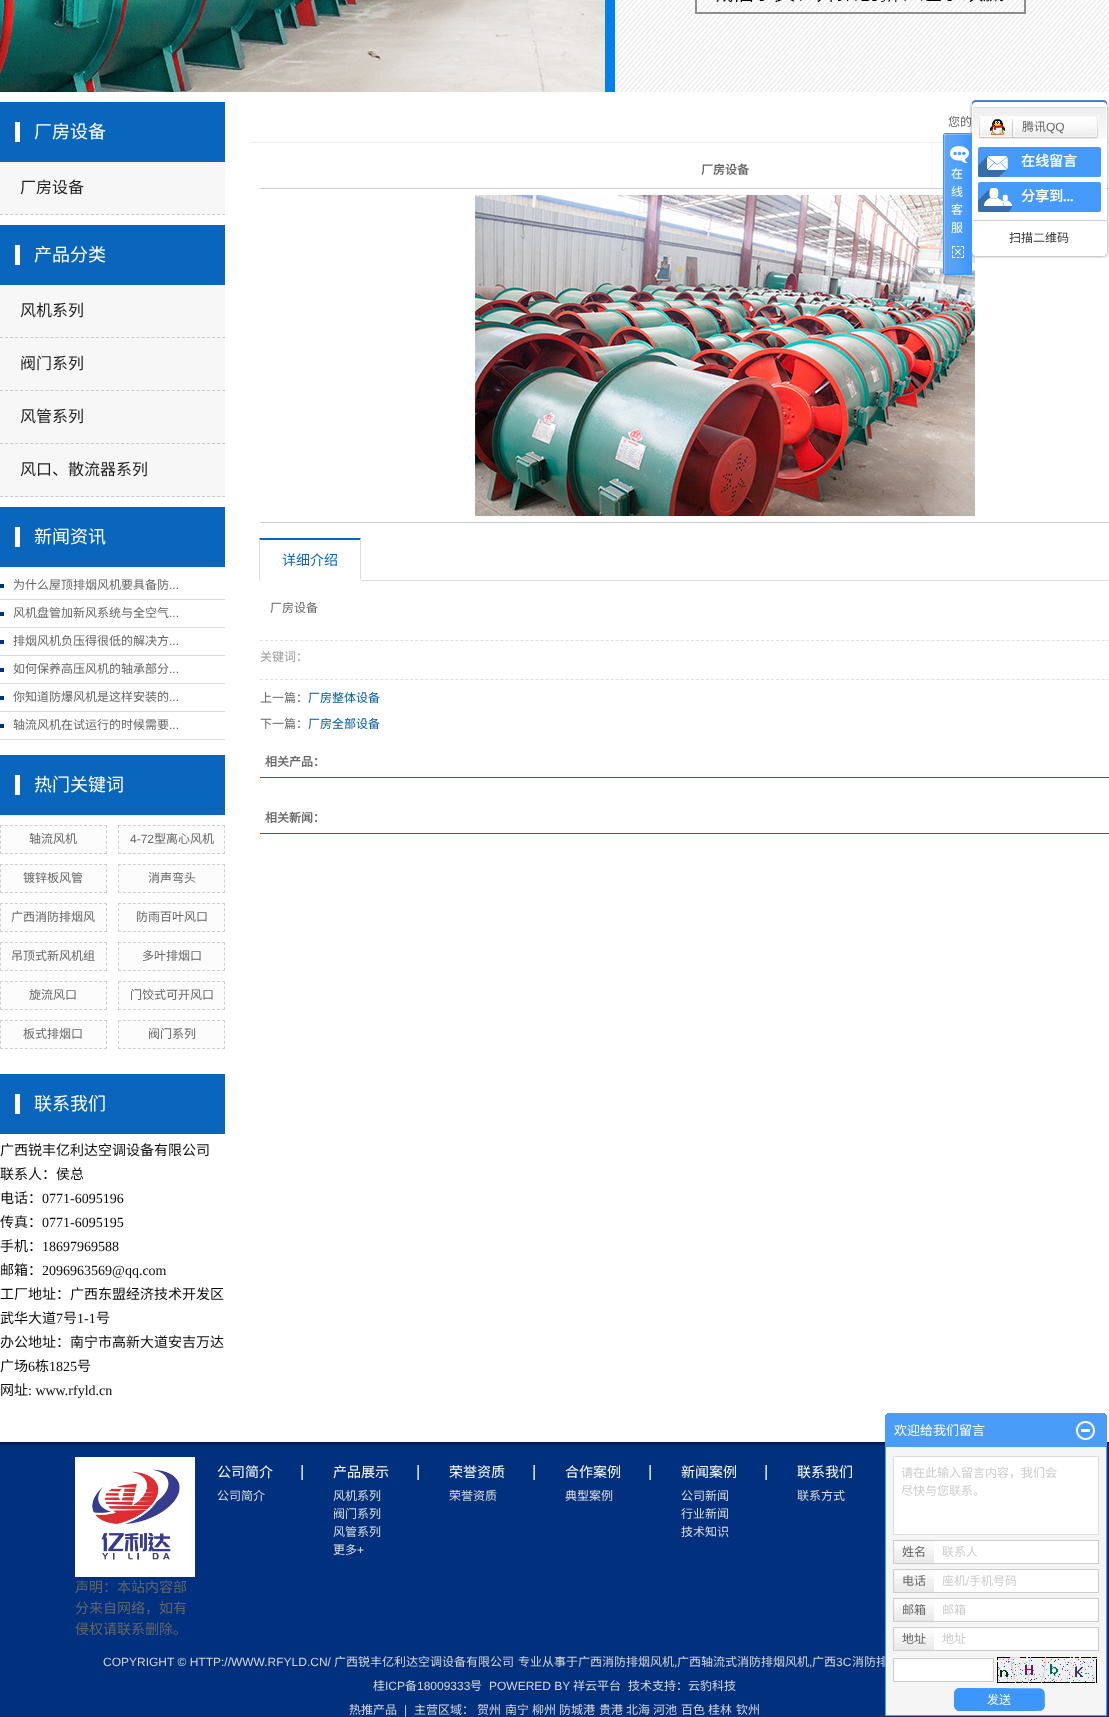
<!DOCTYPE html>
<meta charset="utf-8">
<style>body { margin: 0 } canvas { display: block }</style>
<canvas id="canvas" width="1109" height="1717"></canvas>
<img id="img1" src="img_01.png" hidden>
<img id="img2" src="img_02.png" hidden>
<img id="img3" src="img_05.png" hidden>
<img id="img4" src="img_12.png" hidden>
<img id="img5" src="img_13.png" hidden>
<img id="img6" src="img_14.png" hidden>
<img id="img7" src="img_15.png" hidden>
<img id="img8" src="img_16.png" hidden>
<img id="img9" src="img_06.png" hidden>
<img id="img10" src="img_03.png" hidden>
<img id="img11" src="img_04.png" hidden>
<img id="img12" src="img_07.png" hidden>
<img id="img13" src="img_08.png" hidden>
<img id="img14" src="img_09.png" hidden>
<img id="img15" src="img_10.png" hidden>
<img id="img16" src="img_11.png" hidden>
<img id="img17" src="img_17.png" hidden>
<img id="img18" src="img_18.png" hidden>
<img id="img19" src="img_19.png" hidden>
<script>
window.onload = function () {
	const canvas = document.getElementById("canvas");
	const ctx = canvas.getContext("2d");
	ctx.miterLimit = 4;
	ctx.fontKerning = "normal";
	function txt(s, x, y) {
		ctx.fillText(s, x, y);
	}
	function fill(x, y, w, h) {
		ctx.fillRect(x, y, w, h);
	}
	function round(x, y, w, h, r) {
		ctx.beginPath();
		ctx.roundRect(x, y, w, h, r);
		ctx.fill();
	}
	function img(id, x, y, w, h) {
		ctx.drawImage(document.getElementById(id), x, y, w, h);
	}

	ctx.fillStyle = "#FFFFFF";
	fill(0, 0, 1109, 1717);
	img("img1", 0, 0, 1109, 92);
	ctx.fillStyle = "#0A66BC";
	fill(0, 102, 225, 60);
	ctx.fillStyle = "#FFFFFF";
	fill(15, 122, 5, 20);
	ctx.fillStyle = "#F7F7F7";
	fill(0, 162, 225, 53);
	ctx.beginPath();
	ctx.moveTo(0, 214.5);
	ctx.lineTo(225, 214.5);
	ctx.strokeStyle = "#CCCCCC";
	ctx.setLineDash([3, 2.05]);
	ctx.stroke();
	ctx.fillStyle = "#0A66BC";
	fill(0, 225, 225, 60);
	ctx.fillStyle = "#FFFFFF";
	fill(15, 245, 5, 20);
	ctx.fillStyle = "#F7F7F7";
	fill(0, 285, 225, 212);
	ctx.beginPath();
	ctx.moveTo(0, 337.5);
	ctx.lineTo(225, 337.5);
	ctx.stroke();
	ctx.beginPath();
	ctx.moveTo(0, 390.5);
	ctx.lineTo(225, 390.5);
	ctx.stroke();
	ctx.beginPath();
	ctx.moveTo(0, 443.5);
	ctx.lineTo(225, 443.5);
	ctx.stroke();
	ctx.beginPath();
	ctx.moveTo(0, 496.5);
	ctx.lineTo(225, 496.5);
	ctx.stroke();
	ctx.fillStyle = "#0A66BC";
	fill(0, 507, 225, 60);
	ctx.fillStyle = "#FFFFFF";
	fill(15, 527, 5, 20);
	ctx.fillStyle = "#00307E";
	fill(0, 584, 4, 4);
	ctx.fillStyle = "#DDDDDD";
	fill(0, 599, 225, 1);
	ctx.fillStyle = "#00307E";
	fill(0, 612, 4, 4);
	ctx.fillStyle = "#DDDDDD";
	fill(0, 627, 225, 1);
	ctx.fillStyle = "#00307E";
	fill(0, 640, 4, 4);
	ctx.fillStyle = "#DDDDDD";
	fill(0, 655, 225, 1);
	ctx.fillStyle = "#00307E";
	fill(0, 668, 4, 4);
	ctx.fillStyle = "#DDDDDD";
	fill(0, 683, 225, 1);
	ctx.fillStyle = "#00307E";
	fill(0, 696, 4, 4);
	ctx.fillStyle = "#DDDDDD";
	fill(0, 711, 225, 1);
	ctx.fillStyle = "#00307E";
	fill(0, 724, 4, 4);
	ctx.fillStyle = "#DDDDDD";
	fill(0, 739, 225, 1);
	ctx.fillStyle = "#0A66BC";
	fill(0, 755, 225, 60);
	ctx.fillStyle = "#FFFFFF";
	fill(15, 775, 5, 20);
	ctx.fillStyle = "#FCFCFC";
	fill(0, 825, 107, 29);
	ctx.beginPath();
	ctx.moveTo(0, 825.5);
	ctx.lineTo(107, 825.5);
	ctx.strokeStyle = "#D0D0D0";
	ctx.setLineDash([3, 1.95]);
	ctx.stroke();
	ctx.beginPath();
	ctx.moveTo(106.5, 825);
	ctx.lineTo(106.5, 854);
	ctx.setLineDash([3, 2.2]);
	ctx.stroke();
	ctx.beginPath();
	ctx.moveTo(0, 853.5);
	ctx.lineTo(107, 853.5);
	ctx.setLineDash([3, 1.95]);
	ctx.stroke();
	ctx.beginPath();
	ctx.moveTo(0.5, 825);
	ctx.lineTo(0.5, 854);
	ctx.setLineDash([3, 2.2]);
	ctx.stroke();
	fill(118, 825, 107, 29);
	ctx.beginPath();
	ctx.moveTo(118, 825.5);
	ctx.lineTo(225, 825.5);
	ctx.setLineDash([3, 1.95]);
	ctx.stroke();
	ctx.beginPath();
	ctx.moveTo(224.5, 825);
	ctx.lineTo(224.5, 854);
	ctx.setLineDash([3, 2.2]);
	ctx.stroke();
	ctx.beginPath();
	ctx.moveTo(118, 853.5);
	ctx.lineTo(225, 853.5);
	ctx.setLineDash([3, 1.95]);
	ctx.stroke();
	ctx.beginPath();
	ctx.moveTo(118.5, 825);
	ctx.lineTo(118.5, 854);
	ctx.setLineDash([3, 2.2]);
	ctx.stroke();
	fill(0, 864, 107, 29);
	ctx.beginPath();
	ctx.moveTo(0, 864.5);
	ctx.lineTo(107, 864.5);
	ctx.setLineDash([3, 1.95]);
	ctx.stroke();
	ctx.beginPath();
	ctx.moveTo(106.5, 864);
	ctx.lineTo(106.5, 893);
	ctx.setLineDash([3, 2.2]);
	ctx.stroke();
	ctx.beginPath();
	ctx.moveTo(0, 892.5);
	ctx.lineTo(107, 892.5);
	ctx.setLineDash([3, 1.95]);
	ctx.stroke();
	ctx.beginPath();
	ctx.moveTo(0.5, 864);
	ctx.lineTo(0.5, 893);
	ctx.setLineDash([3, 2.2]);
	ctx.stroke();
	fill(118, 864, 107, 29);
	ctx.beginPath();
	ctx.moveTo(118, 864.5);
	ctx.lineTo(225, 864.5);
	ctx.setLineDash([3, 1.95]);
	ctx.stroke();
	ctx.beginPath();
	ctx.moveTo(224.5, 864);
	ctx.lineTo(224.5, 893);
	ctx.setLineDash([3, 2.2]);
	ctx.stroke();
	ctx.beginPath();
	ctx.moveTo(118, 892.5);
	ctx.lineTo(225, 892.5);
	ctx.setLineDash([3, 1.95]);
	ctx.stroke();
	ctx.beginPath();
	ctx.moveTo(118.5, 864);
	ctx.lineTo(118.5, 893);
	ctx.setLineDash([3, 2.2]);
	ctx.stroke();
	fill(0, 903, 107, 29);
	ctx.beginPath();
	ctx.moveTo(0, 903.5);
	ctx.lineTo(107, 903.5);
	ctx.setLineDash([3, 1.95]);
	ctx.stroke();
	ctx.beginPath();
	ctx.moveTo(106.5, 903);
	ctx.lineTo(106.5, 932);
	ctx.setLineDash([3, 2.2]);
	ctx.stroke();
	ctx.beginPath();
	ctx.moveTo(0, 931.5);
	ctx.lineTo(107, 931.5);
	ctx.setLineDash([3, 1.95]);
	ctx.stroke();
	ctx.beginPath();
	ctx.moveTo(0.5, 903);
	ctx.lineTo(0.5, 932);
	ctx.setLineDash([3, 2.2]);
	ctx.stroke();
	fill(118, 903, 107, 29);
	ctx.beginPath();
	ctx.moveTo(118, 903.5);
	ctx.lineTo(225, 903.5);
	ctx.setLineDash([3, 1.95]);
	ctx.stroke();
	ctx.beginPath();
	ctx.moveTo(224.5, 903);
	ctx.lineTo(224.5, 932);
	ctx.setLineDash([3, 2.2]);
	ctx.stroke();
	ctx.beginPath();
	ctx.moveTo(118, 931.5);
	ctx.lineTo(225, 931.5);
	ctx.setLineDash([3, 1.95]);
	ctx.stroke();
	ctx.beginPath();
	ctx.moveTo(118.5, 903);
	ctx.lineTo(118.5, 932);
	ctx.setLineDash([3, 2.2]);
	ctx.stroke();
	fill(0, 942, 107, 29);
	ctx.beginPath();
	ctx.moveTo(0, 942.5);
	ctx.lineTo(107, 942.5);
	ctx.setLineDash([3, 1.95]);
	ctx.stroke();
	ctx.beginPath();
	ctx.moveTo(106.5, 942);
	ctx.lineTo(106.5, 971);
	ctx.setLineDash([3, 2.2]);
	ctx.stroke();
	ctx.beginPath();
	ctx.moveTo(0, 970.5);
	ctx.lineTo(107, 970.5);
	ctx.setLineDash([3, 1.95]);
	ctx.stroke();
	ctx.beginPath();
	ctx.moveTo(0.5, 942);
	ctx.lineTo(0.5, 971);
	ctx.setLineDash([3, 2.2]);
	ctx.stroke();
	fill(118, 942, 107, 29);
	ctx.beginPath();
	ctx.moveTo(118, 942.5);
	ctx.lineTo(225, 942.5);
	ctx.setLineDash([3, 1.95]);
	ctx.stroke();
	ctx.beginPath();
	ctx.moveTo(224.5, 942);
	ctx.lineTo(224.5, 971);
	ctx.setLineDash([3, 2.2]);
	ctx.stroke();
	ctx.beginPath();
	ctx.moveTo(118, 970.5);
	ctx.lineTo(225, 970.5);
	ctx.setLineDash([3, 1.95]);
	ctx.stroke();
	ctx.beginPath();
	ctx.moveTo(118.5, 942);
	ctx.lineTo(118.5, 971);
	ctx.setLineDash([3, 2.2]);
	ctx.stroke();
	fill(0, 981, 107, 29);
	ctx.beginPath();
	ctx.moveTo(0, 981.5);
	ctx.lineTo(107, 981.5);
	ctx.setLineDash([3, 1.95]);
	ctx.stroke();
	ctx.beginPath();
	ctx.moveTo(106.5, 981);
	ctx.lineTo(106.5, 1010);
	ctx.setLineDash([3, 2.2]);
	ctx.stroke();
	ctx.beginPath();
	ctx.moveTo(0, 1009.5);
	ctx.lineTo(107, 1009.5);
	ctx.setLineDash([3, 1.95]);
	ctx.stroke();
	ctx.beginPath();
	ctx.moveTo(0.5, 981);
	ctx.lineTo(0.5, 1010);
	ctx.setLineDash([3, 2.2]);
	ctx.stroke();
	fill(118, 981, 107, 29);
	ctx.beginPath();
	ctx.moveTo(118, 981.5);
	ctx.lineTo(225, 981.5);
	ctx.setLineDash([3, 1.95]);
	ctx.stroke();
	ctx.beginPath();
	ctx.moveTo(224.5, 981);
	ctx.lineTo(224.5, 1010);
	ctx.setLineDash([3, 2.2]);
	ctx.stroke();
	ctx.beginPath();
	ctx.moveTo(118, 1009.5);
	ctx.lineTo(225, 1009.5);
	ctx.setLineDash([3, 1.95]);
	ctx.stroke();
	ctx.beginPath();
	ctx.moveTo(118.5, 981);
	ctx.lineTo(118.5, 1010);
	ctx.setLineDash([3, 2.2]);
	ctx.stroke();
	fill(0, 1020, 107, 29);
	ctx.beginPath();
	ctx.moveTo(0, 1020.5);
	ctx.lineTo(107, 1020.5);
	ctx.setLineDash([3, 1.95]);
	ctx.stroke();
	ctx.beginPath();
	ctx.moveTo(106.5, 1020);
	ctx.lineTo(106.5, 1049);
	ctx.setLineDash([3, 2.2]);
	ctx.stroke();
	ctx.beginPath();
	ctx.moveTo(0, 1048.5);
	ctx.lineTo(107, 1048.5);
	ctx.setLineDash([3, 1.95]);
	ctx.stroke();
	ctx.beginPath();
	ctx.moveTo(0.5, 1020);
	ctx.lineTo(0.5, 1049);
	ctx.setLineDash([3, 2.2]);
	ctx.stroke();
	fill(118, 1020, 107, 29);
	ctx.beginPath();
	ctx.moveTo(118, 1020.5);
	ctx.lineTo(225, 1020.5);
	ctx.setLineDash([3, 1.95]);
	ctx.stroke();
	ctx.beginPath();
	ctx.moveTo(224.5, 1020);
	ctx.lineTo(224.5, 1049);
	ctx.setLineDash([3, 2.2]);
	ctx.stroke();
	ctx.beginPath();
	ctx.moveTo(118, 1048.5);
	ctx.lineTo(225, 1048.5);
	ctx.setLineDash([3, 1.95]);
	ctx.stroke();
	ctx.beginPath();
	ctx.moveTo(118.5, 1020);
	ctx.lineTo(118.5, 1049);
	ctx.setLineDash([3, 2.2]);
	ctx.stroke();
	ctx.fillStyle = "#0A66BC";
	fill(0, 1074, 225, 60);
	ctx.fillStyle = "#FFFFFF";
	fill(15, 1094, 5, 20);
	ctx.fillStyle = "#EEEEEE";
	fill(250, 142, 859, 1);
	ctx.fillStyle = "#CCCCCC";
	fill(260, 188, 849, 1);
	img("img2", 475, 195, 500, 321);
	fill(260, 522, 849, 1);
	ctx.fillStyle = "#DDDDDD";
	fill(361, 580, 748, 1);
	ctx.fillStyle = "#0A66BC";
	ctx.beginPath();
	ctx.moveTo(259, 538);
	ctx.lineTo(361, 538);
	ctx.lineTo(360, 540);
	ctx.lineTo(260, 540);
	ctx.closePath();
	ctx.fill();
	ctx.fillStyle = "#DDDDDD";
	ctx.beginPath();
	ctx.moveTo(361, 538);
	ctx.lineTo(361, 581);
	ctx.lineTo(360, 580);
	ctx.lineTo(360, 540);
	ctx.closePath();
	ctx.fill();
	ctx.fillStyle = "#FFFFFF";
	fill(360, 580, 1, 1);
	ctx.fillStyle = "#DDDDDD";
	ctx.beginPath();
	ctx.moveTo(259, 581);
	ctx.lineTo(259, 538);
	ctx.lineTo(260, 540);
	ctx.lineTo(260, 580);
	ctx.closePath();
	ctx.fill();
	ctx.beginPath();
	ctx.moveTo(260, 640.5);
	ctx.lineTo(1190, 640.5);
	ctx.strokeStyle = "#E0E1DC";
	ctx.setLineDash([3, 2.01]);
	ctx.stroke();
	ctx.beginPath();
	ctx.moveTo(260, 679.5);
	ctx.lineTo(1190, 679.5);
	ctx.stroke();
	ctx.fillStyle = "#0A66BC";
	fill(260, 777, 849, 1);
	fill(260, 833, 849, 1);
	img("img3", 969, 100, 140, 7);
	img("img4", 972, 250, 137, 8);
	ctx.fillStyle = "#00307E";
	fill(0, 1446, 1109, 271);
	img("img5", 0, 1442, 1109, 4);
	img("img6", 301, 1465, 2, 15);
	img("img6", 417, 1465, 2, 15);
	img("img6", 533, 1465, 2, 15);
	img("img6", 649, 1465, 2, 15);
	img("img6", 765, 1465, 2, 15);
	img("img7", 75, 1457, 120, 120);
	ctx.fillStyle = "#4A9CF9";
	fill(887, 1413, 218, 1);
	fill(886, 1414, 220, 1);
	fill(885, 1415, 222, 31);
	img("img8", 1076, 1421, 19, 19);
	ctx.font = "18px Noto Sans CJK SC";
	ctx.fillStyle = "#FFFFFF";
	txt("厂房设备", 34, 138);
	ctx.font = "16px Noto Sans CJK SC";
	ctx.fillStyle = "#1F1F1F";
	txt("厂房设备", 20, 193);
	ctx.font = "18px Noto Sans CJK SC";
	ctx.fillStyle = "#FFFFFF";
	txt("产品分类", 34, 261);
	ctx.font = "16px Noto Sans CJK SC";
	ctx.fillStyle = "#1F1F1F";
	txt("风机系列", 20, 316);
	txt("阀门系列", 20, 369);
	txt("风管系列", 20, 422);
	txt("风口、散流器系列", 20, 475);
	ctx.font = "18px Noto Sans CJK SC";
	ctx.fillStyle = "#FFFFFF";
	txt("新闻资讯", 34, 543);
	ctx.font = "12px Noto Sans CJK SC";
	ctx.fillStyle = "#666666";
	txt("为什么屋顶排烟风机要具备防", 13, 589);
	ctx.font = "12px Liberation Sans";
	txt("...", 169, 589);
	ctx.font = "12px Noto Sans CJK SC";
	txt("风机盘管加新风系统与全空气", 13, 617);
	ctx.font = "12px Liberation Sans";
	txt("...", 169, 617);
	ctx.font = "12px Noto Sans CJK SC";
	txt("排烟风机负压得很低的解决方", 13, 645);
	ctx.font = "12px Liberation Sans";
	txt("...", 169, 645);
	ctx.font = "12px Noto Sans CJK SC";
	txt("如何保养高压风机的轴承部分", 13, 673);
	ctx.font = "12px Liberation Sans";
	txt("...", 169, 673);
	ctx.font = "12px Noto Sans CJK SC";
	txt("你知道防爆风机是这样安装的", 13, 701);
	ctx.font = "12px Liberation Sans";
	txt("...", 169, 701);
	ctx.font = "12px Noto Sans CJK SC";
	txt("轴流风机在试运行的时候需要", 13, 729);
	ctx.font = "12px Liberation Sans";
	txt("...", 169, 729);
	ctx.font = "18px Noto Sans CJK SC";
	ctx.fillStyle = "#FFFFFF";
	txt("热门关键词", 34, 791);
	ctx.font = "12px Noto Sans CJK SC";
	ctx.fillStyle = "#666666";
	txt("轴流风机", 29, 843);
	ctx.font = "12px Liberation Sans";
	txt("4-72", 130, 843);
	ctx.font = "12px Noto Sans CJK SC";
	txt("型离心风机", 154, 843);
	txt("镀锌板风管", 23, 882);
	txt("消声弯头", 148, 882);
	txt("广西消防排烟风", 11, 921);
	txt("防雨百叶风口", 136, 921);
	txt("吊顶式新风机组", 11, 960);
	txt("多叶排烟口", 142, 960);
	txt("旋流风口", 29, 999);
	txt("门饺式可开风口", 130, 999);
	txt("板式排烟口", 23, 1038);
	txt("阀门系列", 148, 1038);
	ctx.font = "18px Noto Sans CJK SC";
	ctx.fillStyle = "#FFFFFF";
	txt("联系我们", 34, 1110);
	ctx.font = "14px Noto Sans CJK SC";
	ctx.fillStyle = "#0C0C0C";
	txt("广西锐丰亿利达空调设备有限公司", 0, 1155);
	txt("联系人：侯总", 0, 1179);
	txt("电话：", 0, 1203);
	ctx.font = "14px Liberation Serif";
	txt("0771-6095196", 42, 1203);
	ctx.font = "14px Noto Sans CJK SC";
	txt("传真：", 0, 1227);
	ctx.font = "14px Liberation Serif";
	txt("0771-6095195", 42, 1227);
	ctx.font = "14px Noto Sans CJK SC";
	txt("手机：", 0, 1251);
	ctx.font = "14px Liberation Serif";
	txt("18697969588", 42, 1251);
	ctx.font = "14px Noto Sans CJK SC";
	txt("邮箱：", 0, 1275);
	ctx.font = "14px Liberation Serif";
	txt("2096963569@qq.com", 42, 1275);
	ctx.font = "14px Noto Sans CJK SC";
	txt("工厂地址：广西东盟经济技术开发区", 0, 1299);
	txt("武华大道", 0, 1323);
	ctx.font = "14px Liberation Serif";
	txt("7", 56, 1323);
	ctx.font = "14px Noto Sans CJK SC";
	txt("号", 63, 1323);
	ctx.font = "14px Liberation Serif";
	txt("1-1", 77, 1323);
	ctx.font = "14px Noto Sans CJK SC";
	txt("号", 96, 1323);
	txt("办公地址：南宁市高新大道安吉万达", 0, 1347);
	txt("广场", 0, 1371);
	ctx.font = "14px Liberation Serif";
	txt("6", 28, 1371);
	ctx.font = "14px Noto Sans CJK SC";
	txt("栋", 35, 1371);
	ctx.font = "14px Liberation Serif";
	txt("1825", 49, 1371);
	ctx.font = "14px Noto Sans CJK SC";
	txt("号", 77, 1371);
	txt("网址", 0, 1395);
	ctx.font = "14px Liberation Serif";
	txt(": www.rfyld.cn", 28, 1395);
	ctx.font = "12px Noto Sans CJK SC";
	ctx.fillStyle = "#666666";
	txt("您的", 948, 126);
	ctx.font = "bold 12px Noto Sans CJK SC";
	txt("厂房设备", 701, 174);
	ctx.font = "14px Noto Sans CJK SC";
	ctx.fillStyle = "#0A66BC";
	txt("详细介绍", 282, 565);
	ctx.font = "12px Noto Sans CJK SC";
	ctx.fillStyle = "#666666";
	txt("厂房设备", 270, 612);
	ctx.fillStyle = "#999999";
	txt("关键词：", 260, 661);
	ctx.fillStyle = "#666666";
	txt("上一篇：", 260, 702);
	ctx.fillStyle = "#005A98";
	txt("厂房整体设备", 308, 702);
	ctx.fillStyle = "#666666";
	txt("下一篇：", 260, 728);
	ctx.fillStyle = "#005A98";
	txt("厂房全部设备", 308, 728);
	ctx.font = "bold 12px Noto Sans CJK SC";
	ctx.fillStyle = "#666666";
	txt("相关产品：", 265, 766);
	txt("相关新闻：", 265, 822);
	img("img9", 969, 107, 140, 143);
	img("img10", 943, 133, 29, 142);
	img("img11", 952, 246, 12, 12);
	ctx.font = "12px Noto Sans CJK SC";
	ctx.fillStyle = "#FFFFFF";
	txt("服", 951, 232);
	txt("客", 951, 214);
	txt("线", 951, 196);
	txt("在", 951, 178);
	img("img12", 973, 107, 133, 32);
	img("img13", 979, 115, 120, 24);
	img("img14", 990, 119, 15, 16);
	ctx.fillStyle = "#666666";
	txt("腾讯", 1022, 131);
	ctx.font = "12px Liberation Sans";
	txt("QQ", 1046, 131);
	ctx.fillStyle = "#459AFA";
	round(978, 147, 123, 30, 2);
	img("img15", 978, 156, 30, 21);
	ctx.font = "bold 14px Noto Sans CJK SC";
	ctx.fillStyle = "#FFFFFF";
	txt("在线留言", 1021, 166);
	ctx.fillStyle = "#459AFA";
	round(978, 182, 123, 30, 2);
	img("img16", 978, 188, 34, 24);
	ctx.fillStyle = "#FFFFFF";
	txt("分享到", 1021, 201);
	ctx.font = "bold 14px Liberation Serif";
	txt("...", 1063, 201);
	ctx.fillStyle = "#CCCCCC";
	fill(973, 220, 133, 1);
	ctx.font = "12px Noto Sans CJK SC";
	ctx.fillStyle = "#333333";
	txt("扫描二维码", 1009, 242);
	ctx.font = "14px Noto Sans CJK SC";
	ctx.fillStyle = "#FFFFFF";
	txt("公司简介", 217, 1477);
	ctx.font = "12px Noto Sans CJK SC";
	ctx.fillStyle = "#DFDFDF";
	txt("公司简介", 217, 1500);
	ctx.font = "14px Noto Sans CJK SC";
	ctx.fillStyle = "#FFFFFF";
	txt("产品展示", 333, 1477);
	ctx.font = "12px Noto Sans CJK SC";
	ctx.fillStyle = "#DFDFDF";
	txt("风机系列", 333, 1500);
	txt("阀门系列", 333, 1518);
	txt("风管系列", 333, 1536);
	txt("更多", 333, 1554);
	ctx.font = "12px Liberation Sans";
	txt("+", 357, 1554);
	ctx.font = "14px Noto Sans CJK SC";
	ctx.fillStyle = "#FFFFFF";
	txt("荣誉资质", 449, 1477);
	ctx.font = "12px Noto Sans CJK SC";
	ctx.fillStyle = "#DFDFDF";
	txt("荣誉资质", 449, 1500);
	ctx.font = "14px Noto Sans CJK SC";
	ctx.fillStyle = "#FFFFFF";
	txt("合作案例", 565, 1477);
	ctx.font = "12px Noto Sans CJK SC";
	ctx.fillStyle = "#DFDFDF";
	txt("典型案例", 565, 1500);
	ctx.font = "14px Noto Sans CJK SC";
	ctx.fillStyle = "#FFFFFF";
	txt("新闻案例", 681, 1477);
	ctx.font = "12px Noto Sans CJK SC";
	ctx.fillStyle = "#DFDFDF";
	txt("公司新闻", 681, 1500);
	txt("行业新闻", 681, 1518);
	txt("技术知识", 681, 1536);
	ctx.font = "14px Noto Sans CJK SC";
	ctx.fillStyle = "#FFFFFF";
	txt("联系我们", 797, 1477);
	ctx.font = "12px Noto Sans CJK SC";
	ctx.fillStyle = "#DFDFDF";
	txt("联系方式", 797, 1500);
	ctx.font = "14px Noto Sans CJK SC";
	ctx.fillStyle = "#666666";
	txt("声明：本站内容部", 75, 1592);
	txt("分来自网络，如有", 75, 1613);
	txt("侵权请联系删除。", 75, 1634);
	ctx.font = "12px Liberation Sans";
	ctx.fillStyle = "#D5D6D9";
	txt("COPYRIGHT © HTTP://WWW.RFYLD.CN/", 103, 1666);
	ctx.font = "12px Noto Sans CJK SC";
	txt("广西锐丰亿利达空调设备有限公司", 334, 1666);
	txt("专业从事于广西消防排烟风机", 518, 1666);
	ctx.font = "12px Liberation Sans";
	txt(",", 674, 1666);
	ctx.font = "12px Noto Sans CJK SC";
	txt("广西轴流式消防排烟风机", 677, 1666);
	ctx.font = "12px Liberation Sans";
	txt(",", 809, 1666);
	ctx.font = "12px Noto Sans CJK SC";
	txt("广西", 812, 1666);
	ctx.font = "12px Liberation Sans";
	txt("3C", 836, 1666);
	ctx.font = "12px Noto Sans CJK SC";
	txt("消防排", 852, 1666);
	txt("桂", 373, 1690);
	ctx.font = "12px Liberation Sans";
	txt("ICP", 385, 1690);
	ctx.font = "12px Noto Sans CJK SC";
	txt("备", 405, 1690);
	ctx.font = "12px Liberation Sans";
	txt("18009333", 417, 1690);
	ctx.font = "12px Noto Sans CJK SC";
	txt("号", 470, 1690);
	ctx.font = "12px Liberation Sans";
	txt("POWERED BY", 489, 1690);
	ctx.font = "12px Noto Sans CJK SC";
	txt("祥云平台", 573, 1690);
	txt("技术支持：云豹科技", 628, 1690);
	txt("热推产品", 349, 1714);
	ctx.font = "12px Liberation Sans";
	txt("|", 404, 1714);
	ctx.font = "12px Noto Sans CJK SC";
	txt("主营区域：", 414, 1714);
	txt("贺州", 477, 1714);
	txt("南宁", 505, 1714);
	txt("柳州", 532, 1714);
	txt("防城港", 559, 1714);
	txt("贵港", 599, 1714);
	txt("北海", 626, 1714);
	txt("河池", 653, 1714);
	txt("百色", 681, 1714);
	txt("桂林", 708, 1714);
	txt("钦州", 736, 1714);
	ctx.font = "13px Noto Sans CJK SC";
	ctx.fillStyle = "#FFFFFF";
	txt("欢迎给我们留言", 894, 1435);
	ctx.fillStyle = "#F5F5F5";
	ctx.beginPath();
	ctx.rect(885.5, 1446.5, 221, 269);
	ctx.fill();
	ctx.strokeStyle = "#4A9CF9";
	ctx.setLineDash([]);
	ctx.stroke();
	ctx.fillStyle = "#FFFFFF";
	ctx.beginPath();
	ctx.rect(893.5, 1456.5, 205, 78);
	ctx.fill();
	ctx.strokeStyle = "#DEDEDE";
	ctx.stroke();
	ctx.font = "12px Noto Sans CJK SC";
	ctx.fillStyle = "#CCCCCC";
	txt("请在此输入留言内容，我们会", 901, 1477);
	txt("尽快与您联系。", 901, 1495);
	ctx.fillStyle = "#FFFFFF";
	fill(934, 1541, 164, 22);
	ctx.strokeStyle = "#CCCCCC";
	ctx.strokeRect(893.5, 1540.5, 205, 23);
	img("img17", 894, 1541, 40, 22);
	ctx.fillStyle = "#666666";
	txt("姓名", 902, 1556);
	ctx.fillStyle = "#CCCCCC";
	txt("联系人", 942, 1556);
	ctx.fillStyle = "#FFFFFF";
	fill(934, 1570, 164, 22);
	ctx.strokeRect(893.5, 1569.5, 205, 23);
	img("img17", 894, 1570, 40, 22);
	ctx.fillStyle = "#666666";
	txt("电话", 902, 1585);
	ctx.fillStyle = "#CCCCCC";
	txt("座机", 942, 1585);
	ctx.font = "12px Liberation Sans";
	txt("/", 966, 1585);
	ctx.font = "12px Noto Sans CJK SC";
	txt("手机号码", 969, 1585);
	ctx.fillStyle = "#FFFFFF";
	fill(934, 1599, 164, 22);
	ctx.strokeRect(893.5, 1598.5, 205, 23);
	img("img17", 894, 1599, 40, 22);
	ctx.fillStyle = "#666666";
	txt("邮箱", 902, 1614);
	ctx.fillStyle = "#CCCCCC";
	txt("邮箱", 942, 1614);
	ctx.fillStyle = "#FFFFFF";
	fill(934, 1628, 164, 22);
	ctx.strokeRect(893.5, 1627.5, 205, 23);
	img("img17", 894, 1628, 40, 22);
	ctx.fillStyle = "#666666";
	txt("地址", 902, 1643);
	ctx.fillStyle = "#CCCCCC";
	txt("地址", 942, 1643);
	ctx.fillStyle = "#FFFFFF";
	ctx.beginPath();
	ctx.rect(893.5, 1658.5, 100, 23);
	ctx.fill();
	ctx.stroke();
	img("img18", 997, 1657, 100, 26);
	img("img19", 954, 1688, 91, 24);
	txt("发送", 987, 1704);
};
</script>
